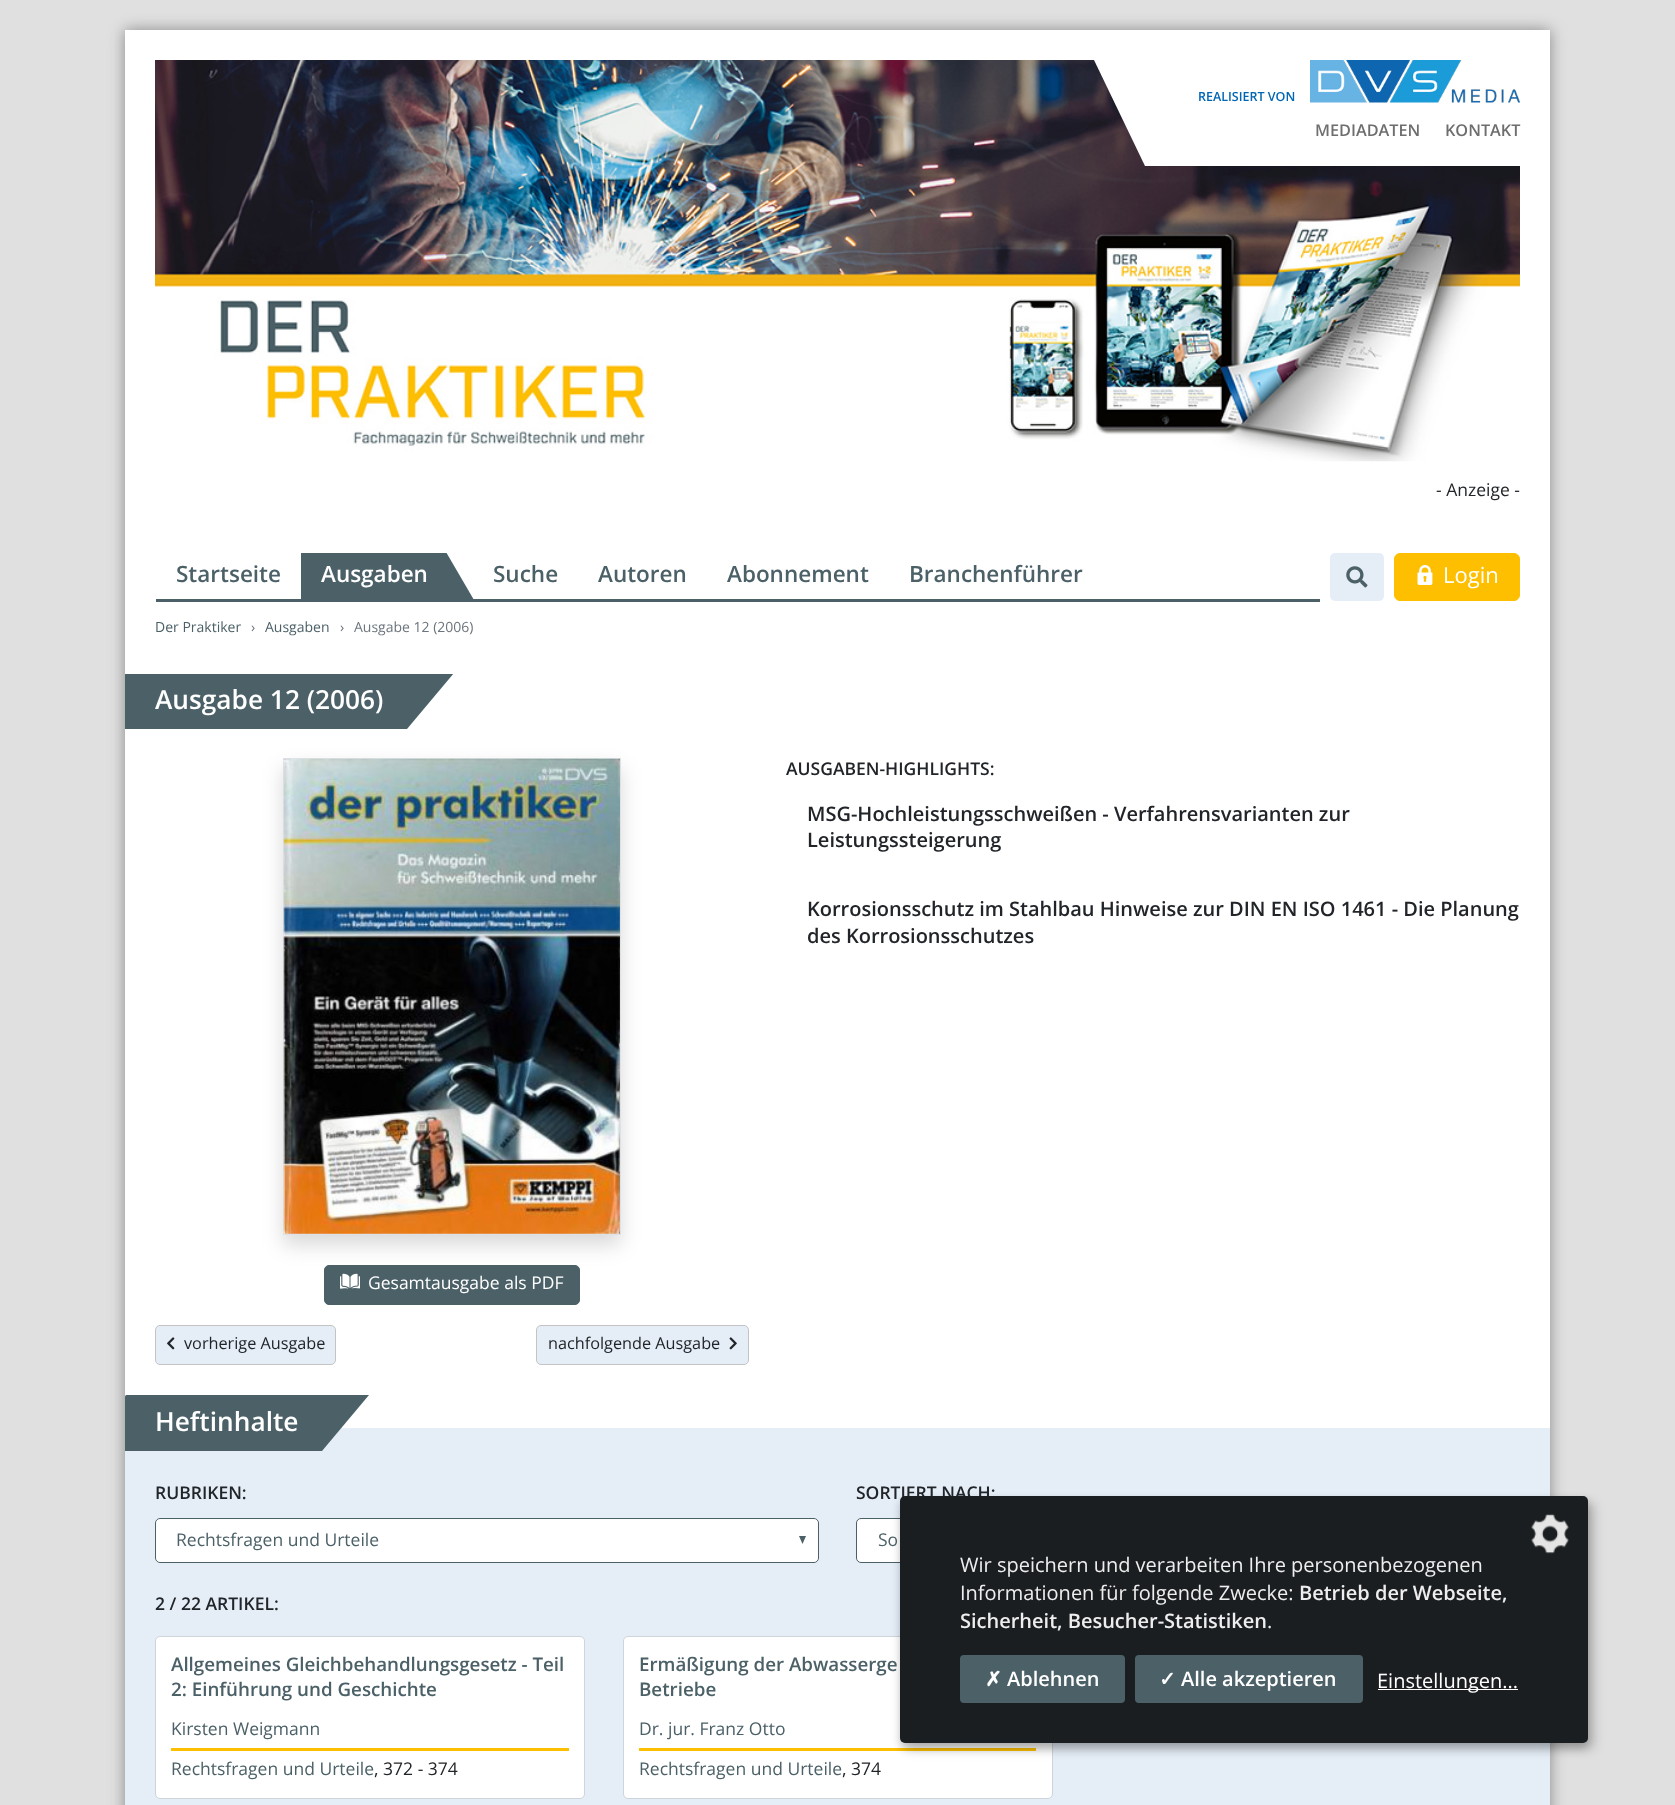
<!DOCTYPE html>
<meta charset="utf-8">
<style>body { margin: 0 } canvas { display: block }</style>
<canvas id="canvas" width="1675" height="1805"></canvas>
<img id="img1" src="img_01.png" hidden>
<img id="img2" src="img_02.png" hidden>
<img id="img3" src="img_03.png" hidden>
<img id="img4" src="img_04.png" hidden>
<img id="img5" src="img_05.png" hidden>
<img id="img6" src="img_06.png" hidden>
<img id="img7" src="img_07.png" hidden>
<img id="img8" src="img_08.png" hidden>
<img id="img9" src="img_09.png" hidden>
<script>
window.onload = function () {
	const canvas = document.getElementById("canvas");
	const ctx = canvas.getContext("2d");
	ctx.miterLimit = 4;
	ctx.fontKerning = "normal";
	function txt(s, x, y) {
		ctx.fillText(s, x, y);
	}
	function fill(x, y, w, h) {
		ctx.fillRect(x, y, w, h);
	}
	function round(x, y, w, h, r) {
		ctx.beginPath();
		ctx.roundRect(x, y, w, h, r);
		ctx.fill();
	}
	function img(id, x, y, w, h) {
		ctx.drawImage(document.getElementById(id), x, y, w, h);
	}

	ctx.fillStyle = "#E0E0E0";
	fill(0, 0, 1675, 1805);
	ctx.fillStyle = "rgba(128, 128, 128, 0.91)";
	ctx.filter = "blur(7.5px)";
	ctx.beginPath();
	ctx.rect(125, 30, 1425, 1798);
	ctx.fill();
	ctx.filter = "none";
	ctx.fillStyle = "#FFFFFF";
	fill(125, 30, 1425, 1398);
	img("img1", 155, 60, 1365, 402);
	fill(1145, 60, 375, 106);
	ctx.beginPath();
	ctx.moveTo(1145, 60);
	ctx.lineTo(1145, 166);
	ctx.lineTo(1094, 60);
	ctx.closePath();
	ctx.fill();
	img("img2", 1310, 60, 210, 43);
	ctx.fillStyle = "#4B6067";
	fill(156, 599, 1164, 3);
	ctx.save();
	ctx.beginPath();
	ctx.rect(301, 553, 173, 47);
	ctx.clip();
	ctx.beginPath();
	ctx.moveTo(275, 552);
	ctx.lineTo(446, 552);
	ctx.lineTo(474, 600);
	ctx.lineTo(302, 600);
	ctx.closePath();
	ctx.fill();
	ctx.restore();
	ctx.fillStyle = "#E5EEF7";
	round(1330, 553, 54, 48, 5);
	img("img3", 1346, 566, 22, 22);
	ctx.fillStyle = "#FDBF00";
	ctx.beginPath();
	ctx.roundRect(1394.5, 553.5, 125, 47, 5.5);
	ctx.fill();
	ctx.strokeStyle = "#FDBF00";
	ctx.stroke();
	img("img4", 1417, 565, 16, 20);
	ctx.save();
	ctx.beginPath();
	ctx.rect(125, 674, 329, 56);
	ctx.clip();
	ctx.fillStyle = "#4B6067";
	ctx.beginPath();
	ctx.moveTo(126, 673);
	ctx.lineTo(454, 673);
	ctx.lineTo(407, 729);
	ctx.lineTo(78, 729);
	ctx.closePath();
	ctx.fill();
	ctx.restore();
	ctx.fillStyle = "rgba(0, 0, 0, 0.15)";
	ctx.filter = "blur(10px)";
	ctx.beginPath();
	ctx.rect(283, 768, 338, 477);
	ctx.fill();
	ctx.filter = "none";
	ctx.strokeStyle = "#DEE2E6";
	ctx.strokeRect(283.5, 758.5, 337, 476);
	img("img5", 283, 758, 337, 476);
	ctx.fillStyle = "#4B6067";
	ctx.beginPath();
	ctx.roundRect(324.5, 1265.5, 255, 39, 4.5);
	ctx.fill();
	ctx.strokeStyle = "#4B6067";
	ctx.stroke();
	img("img6", 340, 1273, 20, 16);
	ctx.fillStyle = "#E5EEF7";
	ctx.beginPath();
	ctx.roundRect(155.5, 1325.5, 180, 39, 4.5);
	ctx.fill();
	ctx.strokeStyle = "#C4C4C4";
	ctx.stroke();
	img("img7", 167, 1337, 8, 13);
	ctx.beginPath();
	ctx.roundRect(536.5, 1325.5, 212, 39, 4.5);
	ctx.fill();
	ctx.stroke();
	img("img8", 729, 1337, 8, 13);
	fill(125, 1428, 1425, 377);
	ctx.save();
	ctx.beginPath();
	ctx.rect(125, 1395, 244, 56);
	ctx.clip();
	ctx.fillStyle = "#4B6067";
	ctx.beginPath();
	ctx.moveTo(126, 1395);
	ctx.lineTo(369, 1395);
	ctx.lineTo(322, 1451);
	ctx.lineTo(78, 1451);
	ctx.closePath();
	ctx.fill();
	ctx.restore();
	ctx.fillStyle = "#FFFFFF";
	round(155, 1518, 664, 45, 5);
	ctx.fillStyle = "#4B6067";
	ctx.beginPath();
	ctx.moveTo(799, 1536);
	ctx.lineTo(802.5, 1544);
	ctx.lineTo(806, 1536);
	ctx.closePath();
	ctx.fill();
	ctx.beginPath();
	ctx.roundRect(155.5, 1518.5, 663, 44, 4.5);
	ctx.strokeStyle = "#4B6067";
	ctx.stroke();
	ctx.fillStyle = "#FFFFFF";
	ctx.beginPath();
	ctx.roundRect(856.5, 1518.5, 663, 44, 4.5);
	ctx.fill();
	ctx.stroke();
	ctx.beginPath();
	ctx.roundRect(155.5, 1636.5, 429, 162, 4.5);
	ctx.fill();
	ctx.strokeStyle = "#CED4DA";
	ctx.stroke();
	ctx.fillStyle = "#FDBF00";
	fill(171, 1748, 398, 3);
	ctx.fillStyle = "#FFFFFF";
	ctx.beginPath();
	ctx.roundRect(623.5, 1636.5, 429, 162, 4.5);
	ctx.fill();
	ctx.stroke();
	ctx.fillStyle = "#FDBF00";
	fill(639, 1748, 397, 3);
	ctx.fillStyle = "rgba(0, 0, 0, 0.19)";
	ctx.filter = "blur(6px)";
	ctx.beginPath();
	ctx.roundRect(906, 1503, 688, 246, 5);
	ctx.fill();
	ctx.filter = "none";
	ctx.fillStyle = "rgba(0, 0, 0, 0.2)";
	ctx.filter = "blur(4px)";
	ctx.beginPath();
	ctx.roundRect(900, 1501, 688, 247, 5);
	ctx.fill();
	ctx.filter = "none";
	ctx.font = "600 12.5px Open Sans";
	ctx.fillStyle = "#0066B3";
	txt("REALISIERT VON", 1198, 101);
	ctx.font = "600 16.25px Open Sans";
	ctx.fillStyle = "#6E6E6E";
	txt("MEDIADATEN", 1315, 136);
	txt("KONTAKT", 1445, 136);
	ctx.font = "17.5px Open Sans";
	ctx.fillStyle = "#212529";
	txt("- Anzeige -", 1436, 496);
	ctx.font = "600 22.5px Open Sans";
	ctx.fillStyle = "#4B6067";
	txt("Startseite", 176, 582);
	ctx.fillStyle = "#FFFFFF";
	txt("Ausgaben", 321, 582);
	ctx.fillStyle = "#4B6067";
	txt("Suche", 493, 582);
	txt("Autoren", 598, 582);
	txt("Abonnement", 727, 582);
	txt("Branchenführer", 909, 582);
	ctx.font = "22px Open Sans";
	ctx.fillStyle = "#FFFFFF";
	txt("Login", 1443, 583);
	ctx.font = "14px Open Sans";
	ctx.fillStyle = "#4B6067";
	txt("Der Praktiker", 155, 632);
	ctx.fillStyle = "#6C757D";
	txt("›", 251, 632);
	ctx.fillStyle = "#4B6067";
	txt("Ausgaben", 265, 632);
	ctx.fillStyle = "#6C757D";
	txt("›", 340, 632);
	txt("Ausgabe 12 (2006)", 354, 632);
	ctx.font = "600 26.25px Open Sans";
	ctx.fillStyle = "#FFFFFF";
	txt("Ausgabe 12 (2006)", 155, 709);
	ctx.font = "600 17.5px Open Sans";
	ctx.fillStyle = "#212529";
	txt("AUSGABEN-HIGHLIGHTS:", 786, 775);
	ctx.font = "600 20px Open Sans";
	txt("MSG-Hochleistungsschweißen - Verfahrensvarianten zur", 807, 821);
	txt("Leistungssteigerung", 807, 847);
	txt("Korrosionsschutz im Stahlbau Hinweise zur DIN EN ISO 1461 - Die Planung", 807, 916);
	txt("des Korrosionsschutzes", 807, 943);
	ctx.font = "17.5px Open Sans";
	ctx.fillStyle = "#FFFFFF";
	txt("Gesamtausgabe als PDF", 368, 1289);
	ctx.font = "16.25px Open Sans";
	ctx.fillStyle = "#212529";
	txt("vorherige Ausgabe", 184, 1349);
	txt("nachfolgende Ausgabe", 548, 1349);
	ctx.font = "600 26.25px Open Sans";
	ctx.fillStyle = "#FFFFFF";
	txt("Heftinhalte", 155, 1431);
	ctx.font = "600 17.5px Open Sans";
	ctx.fillStyle = "#212529";
	txt("RUBRIKEN:", 155, 1499);
	ctx.font = "17.5px Open Sans";
	ctx.fillStyle = "#4B6067";
	txt("Rechtsfragen und Urteile", 176, 1546);
	ctx.font = "600 17.5px Open Sans";
	ctx.fillStyle = "#212529";
	txt("SORTIERT NACH:", 856, 1499);
	ctx.font = "17.5px Open Sans";
	ctx.fillStyle = "#4B6067";
	txt("So", 878, 1546);
	ctx.font = "600 17.5px Open Sans";
	ctx.fillStyle = "#212529";
	txt("2 / 22 ARTIKEL:", 155, 1610);
	ctx.font = "600 18.75px Open Sans";
	ctx.fillStyle = "#4B6067";
	txt("Allgemeines Gleichbehandlungsgesetz - Teil", 171, 1671);
	txt("2: Einführung und Geschichte", 171, 1696);
	ctx.font = "17.5px Open Sans";
	txt("Kirsten Weigmann", 171, 1735);
	txt("Rechtsfragen und Urteile", 171, 1775);
	ctx.fillStyle = "#212529";
	txt(", 372 - 374", 374, 1775);
	ctx.font = "600 18.75px Open Sans";
	ctx.fillStyle = "#4B6067";
	txt("Ermäßigung der Abwasserge", 639, 1671);
	txt("Betriebe", 639, 1696);
	ctx.font = "17.5px Open Sans";
	txt("Dr. jur. Franz Otto", 639, 1735);
	txt("Rechtsfragen und Urteile", 639, 1775);
	ctx.fillStyle = "#212529";
	txt(", 374", 842, 1775);
	ctx.fillStyle = "#1B1E21";
	round(900, 1496, 688, 247, 5);
	img("img9", 1531, 1514, 38, 40);
	ctx.font = "20px Open Sans";
	ctx.fillStyle = "#EEEEEE";
	txt("Wir speichern und verarbeiten Ihre personenbezogenen", 960, 1572);
	txt("Informationen für folgende Zwecke:", 960, 1600);
	ctx.font = "600 20px Open Sans";
	txt("Betrieb der Webseite,", 1299, 1600);
	txt("Sicherheit, Besucher-Statistiken", 960, 1628);
	ctx.font = "20px Open Sans";
	txt(".", 1267, 1628);
	ctx.fillStyle = "#4B6067";
	round(960, 1655, 165, 48, 4);
	ctx.font = "bold 20px DejaVu Sans";
	ctx.fillStyle = "#FFFFFF";
	txt("✗", 985, 1686);
	ctx.font = "600 20px Open Sans";
	txt("Ablehnen", 1007, 1686);
	ctx.fillStyle = "#4B6067";
	round(1135, 1655, 228, 48, 4);
	ctx.font = "bold 20px DejaVu Sans";
	ctx.fillStyle = "#FFFFFF";
	txt("✓", 1159, 1686);
	ctx.font = "600 20px Open Sans";
	txt("Alle akzeptieren", 1181, 1686);
	fill(1378, 1689, 140, 1);
	ctx.font = "20px Open Sans";
	txt("Einstellungen...", 1377, 1688);
};
</script>
